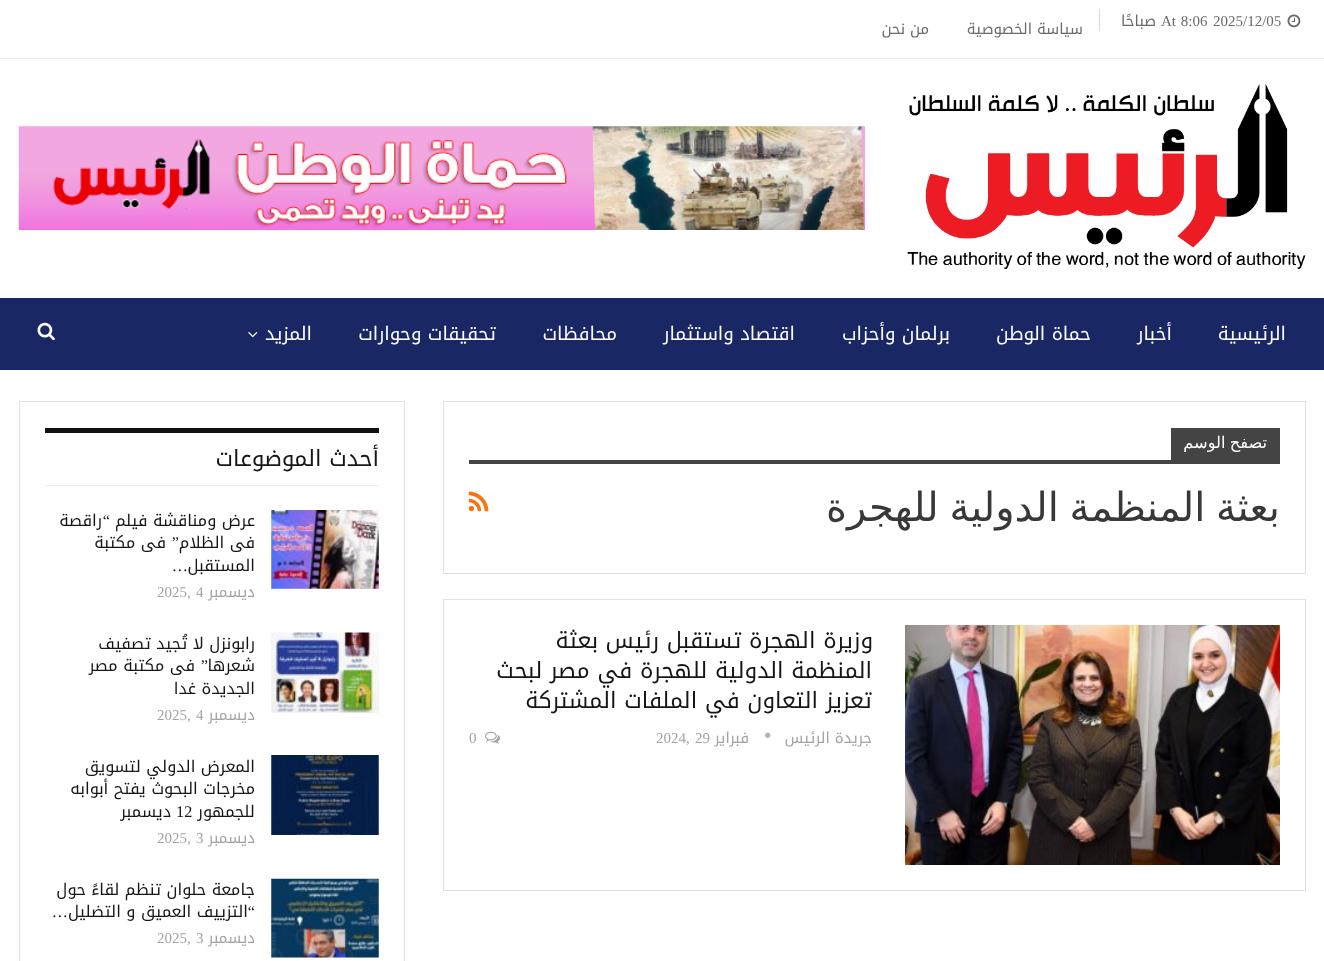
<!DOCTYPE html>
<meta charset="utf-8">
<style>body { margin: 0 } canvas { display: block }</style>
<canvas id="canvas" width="1324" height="961"></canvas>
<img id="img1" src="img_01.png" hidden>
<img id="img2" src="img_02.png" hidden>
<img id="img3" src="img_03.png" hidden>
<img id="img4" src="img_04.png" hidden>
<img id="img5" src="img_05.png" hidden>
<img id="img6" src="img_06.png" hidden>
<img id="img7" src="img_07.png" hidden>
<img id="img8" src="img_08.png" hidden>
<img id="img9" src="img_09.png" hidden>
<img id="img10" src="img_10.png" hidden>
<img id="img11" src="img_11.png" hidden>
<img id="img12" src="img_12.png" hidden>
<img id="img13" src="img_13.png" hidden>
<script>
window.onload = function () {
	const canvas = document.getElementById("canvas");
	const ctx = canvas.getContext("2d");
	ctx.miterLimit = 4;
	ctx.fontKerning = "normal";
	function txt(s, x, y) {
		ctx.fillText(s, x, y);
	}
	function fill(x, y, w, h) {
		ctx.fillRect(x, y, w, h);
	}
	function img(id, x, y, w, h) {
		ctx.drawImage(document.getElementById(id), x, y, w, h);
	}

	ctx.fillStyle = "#FFFFFF";
	fill(0, 0, 1324, 961);
	ctx.fillStyle = "#EDEEF3";
	fill(0, 58, 1324, 1);
	img("img1", 1287, 14, 14, 14);
	ctx.fillStyle = "#D9D9D9";
	fill(1099, 9, 1, 22);
	img("img2", 907, 84, 399, 185);
	img("img3", 18, 126, 847, 104);
	ctx.fillStyle = "#192765";
	fill(0, 298, 1324, 72);
	img("img4", 248, 332, 10, 6);
	img("img5", 37, 322, 18, 19);
	ctx.strokeStyle = "#E0E0E0";
	ctx.strokeRect(443.5, 401.5, 862, 172);
	ctx.fillStyle = "#444444";
	fill(1171, 428, 109, 32);
	fill(469, 460, 811, 4);
	img("img6", 468, 491, 21, 21);
	ctx.strokeRect(443.5, 599.5, 862, 291);
	img("img7", 905, 625, 375, 240);
	img("img8", 765, 732, 6, 6);
	img("img9", 485, 731, 15, 13);
	ctx.strokeRect(19.5, 401.5, 385, 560);
	ctx.fillStyle = "#111111";
	fill(45, 428, 334, 5);
	ctx.fillStyle = "#EDEDED";
	fill(45, 485, 334, 1);
	ctx.fillStyle = "#F5F5F5";
	fill(271, 510, 108, 79);
	img("img10", 271, 510, 108, 79);
	fill(271, 633, 108, 80);
	img("img11", 271, 632, 108, 81);
	img("img12", 271, 755, 108, 80);
	fill(271, 879, 108, 79);
	img("img13", 271, 878, 108, 80);
	ctx.font = "15px Liberation Serif";
	ctx.fillStyle = "#6B6B6B";
	txt("2025/12/05", 1213, 26);
	ctx.wordSpacing = "1px";
	txt("At 8:06", 1161, 26);
	ctx.wordSpacing = "0px";
	ctx.direction = "rtl";
	ctx.font = "15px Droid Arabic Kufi";
	txt("صباحًا", 1156, 26);
	txt("سياسة الخصوصية", 1083, 34);
	txt("من نحن", 929, 34);
	ctx.font = "18.75px Droid Arabic Kufi";
	ctx.fillStyle = "#FFFFFF";
	txt("الرئيسية", 1286, 340);
	txt("أخبار", 1172, 340);
	txt("حماة الوطن", 1091, 340);
	txt("برلمان وأحزاب", 950, 340);
	txt("اقتصاد واستثمار", 795, 340);
	txt("محافظات", 617, 340);
	txt("تحقيقات وحوارات", 496, 340);
	txt("المزيد", 312, 340);
	ctx.wordSpacing = "-1px";
	ctx.font = "16.25px DejaVu Sans";
	txt("تصفح الوسم", 1267, 448);
	ctx.wordSpacing = "-2px";
	ctx.font = "40px DejaVu Sans";
	ctx.fillStyle = "#383838";
	txt("بعثة المنظمة الدولية للهجرة", 1280, 521);
	ctx.wordSpacing = "0px";
	ctx.font = "22.5px Droid Arabic Kufi";
	ctx.fillStyle = "#161616";
	txt("وزيرة الهجرة تستقبل رئيس بعثة", 873, 648);
	txt("المنظمة الدولية للهجرة في مصر لبحث", 872, 678);
	txt("تعزيز التعاون في الملفات المشتركة", 872, 708);
	ctx.font = "15px Droid Arabic Kufi";
	ctx.fillStyle = "#A3A3A3";
	txt("جريدة الرئيس", 872, 743);
	txt("فبراير", 749, 743);
	ctx.direction = "ltr";
	ctx.font = "15px Liberation Serif";
	txt("29", 695, 743);
	txt("2024,", 656, 743);
	txt("0", 469, 743);
	ctx.direction = "rtl";
	ctx.font = "22.5px Droid Arabic Kufi";
	ctx.fillStyle = "#161616";
	txt("أحدث الموضوعات", 379, 466);
	ctx.font = "16.25px Droid Arabic Kufi";
	txt("عرض ومناقشة فيلم", 255, 526);
	ctx.font = "16.25px Liberation Serif";
	txt("“", 110, 526);
	ctx.font = "16.25px Droid Arabic Kufi";
	txt("راقصة", 102, 526);
	txt("فى الظلام", 255, 548);
	ctx.font = "16.25px Liberation Serif";
	txt("”", 179, 548);
	ctx.font = "16.25px Droid Arabic Kufi";
	txt("فى مكتبة", 166, 548);
	txt("المستقبل", 255, 571);
	ctx.font = "16.25px Liberation Serif";
	txt("…", 188, 571);
	ctx.font = "15px Droid Arabic Kufi";
	ctx.fillStyle = "#A3A3A3";
	txt("ديسمبر", 255, 597);
	ctx.direction = "ltr";
	ctx.font = "15px Liberation Serif";
	txt("4", 196, 597);
	txt("2025,", 157, 597);
	ctx.direction = "rtl";
	ctx.font = "16.25px Droid Arabic Kufi";
	ctx.fillStyle = "#161616";
	txt("رابونزل لا تُجيد تصفيف", 255, 649);
	txt("شعرها", 255, 671);
	ctx.font = "16.25px Liberation Serif";
	txt("”", 208, 671);
	ctx.font = "16.25px Droid Arabic Kufi";
	txt("فى مكتبة مصر", 195, 671);
	txt("الجديدة غدا", 255, 694);
	ctx.font = "15px Droid Arabic Kufi";
	ctx.fillStyle = "#A3A3A3";
	txt("ديسمبر", 255, 720);
	ctx.direction = "ltr";
	ctx.font = "15px Liberation Serif";
	txt("4", 196, 720);
	txt("2025,", 157, 720);
	ctx.direction = "rtl";
	ctx.font = "16.25px Droid Arabic Kufi";
	ctx.fillStyle = "#161616";
	txt("المعرض الدولي لتسويق", 255, 772);
	txt("مخرجات البحوث يفتح أبوابه", 255, 794);
	txt("للجمهور", 255, 817);
	ctx.direction = "ltr";
	ctx.font = "16.25px Liberation Serif";
	txt("12", 176, 817);
	ctx.direction = "rtl";
	ctx.font = "16.25px Droid Arabic Kufi";
	txt("ديسمبر", 171, 817);
	ctx.font = "15px Droid Arabic Kufi";
	ctx.fillStyle = "#A3A3A3";
	txt("ديسمبر", 255, 843);
	ctx.direction = "ltr";
	ctx.font = "15px Liberation Serif";
	txt("3", 196, 843);
	txt("2025,", 157, 843);
	ctx.direction = "rtl";
	ctx.font = "16.25px Droid Arabic Kufi";
	ctx.fillStyle = "#161616";
	txt("جامعة حلوان تنظم لقاءً حول", 255, 895);
	ctx.font = "16.25px Liberation Serif";
	txt("“", 255, 917);
	ctx.font = "16.25px Droid Arabic Kufi";
	txt("التزييف العميق و التضليل", 248, 917);
	ctx.font = "16.25px Liberation Serif";
	txt("…", 68, 917);
	ctx.font = "15px Droid Arabic Kufi";
	ctx.fillStyle = "#A3A3A3";
	txt("ديسمبر", 255, 943);
	ctx.direction = "ltr";
	ctx.font = "15px Liberation Serif";
	txt("3", 196, 943);
	txt("2025,", 157, 943);
};
</script>
